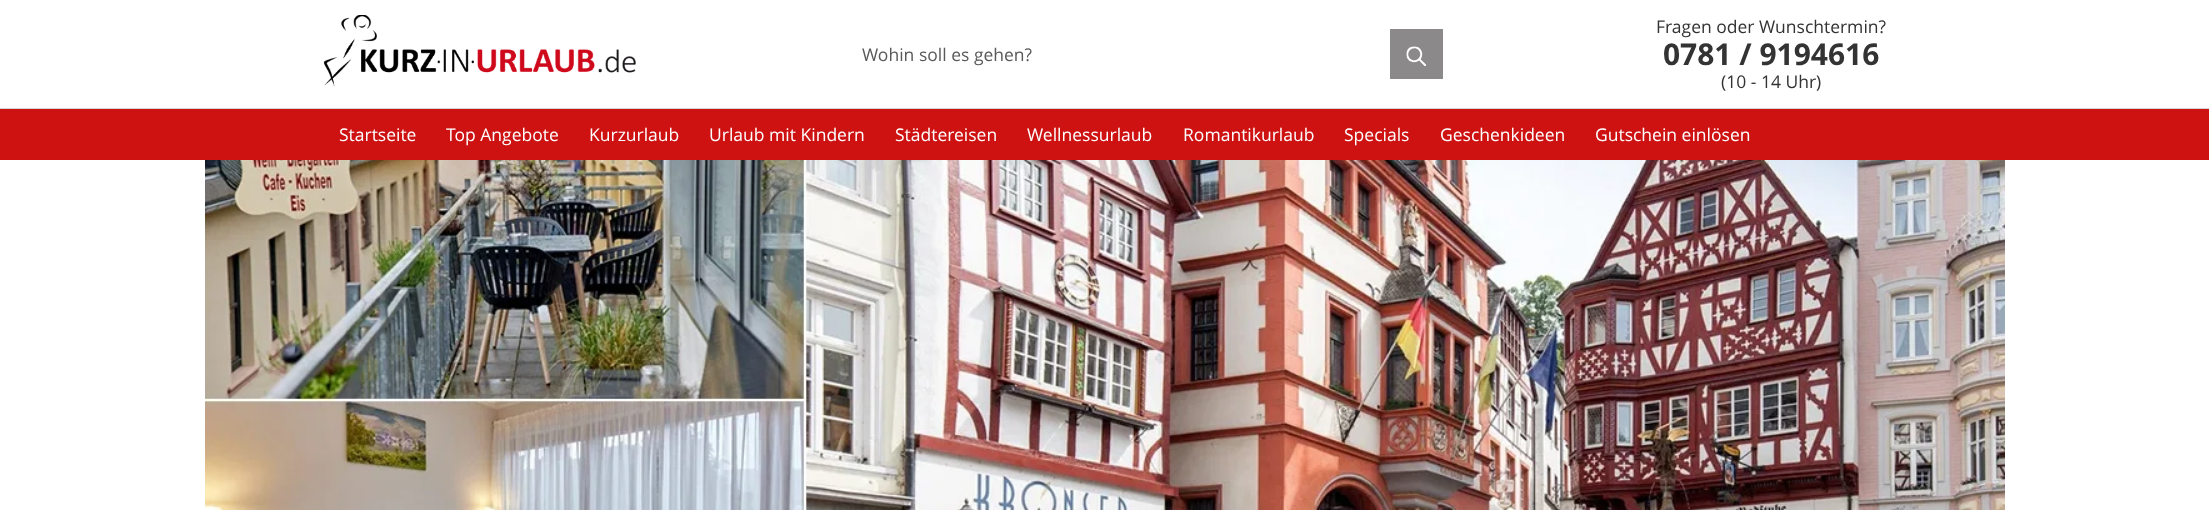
<!DOCTYPE html>
<meta charset="utf-8">
<style>body { margin: 0 } canvas { display: block }</style>
<canvas id="canvas" width="2209" height="510"></canvas>
<img id="img1" src="img_01.png" hidden>
<img id="img2" src="img_02.png" hidden>
<img id="img3" src="img_03.png" hidden>
<script>
window.onload = function () {
	const canvas = document.getElementById("canvas");
	const ctx = canvas.getContext("2d");
	ctx.miterLimit = 4;
	ctx.fontKerning = "normal";
	function txt(s, x, y) {
		ctx.fillText(s, x, y);
	}
	function fill(x, y, w, h) {
		ctx.fillRect(x, y, w, h);
	}
	function img(id, x, y, w, h) {
		ctx.drawImage(document.getElementById(id), x, y, w, h);
	}

	ctx.fillStyle = "#FFFFFF";
	fill(0, 0, 2209, 510);
	ctx.fillStyle = "#D4D4D4";
	fill(0, 108, 2209, 1);
	img("img1", 323, 15, 313, 72);
	ctx.fillStyle = "#8B8989";
	fill(1390, 29, 53, 50);
	img("img2", 1406, 46, 20, 20);
	ctx.fillStyle = "#CE1212";
	fill(0, 109, 2209, 51);
	img("img3", 205, 160, 1800, 350);
	ctx.font = "17.5px Open Sans";
	ctx.fillStyle = "#595959";
	txt("Wohin soll es gehen?", 862, 61);
	ctx.fillStyle = "#333333";
	txt("Fragen oder Wunschtermin?", 1656, 33);
	ctx.font = "bold 30px Open Sans";
	txt("0781 / 9194616", 1663, 65);
	ctx.font = "17.5px Open Sans";
	txt("(10 - 14 Uhr)", 1721, 88);
	ctx.fillStyle = "#FFFFFF";
	txt("Startseite", 339, 141);
	txt("Top Angebote", 446, 141);
	txt("Kurzurlaub", 589, 141);
	txt("Urlaub mit Kindern", 709, 141);
	txt("Städtereisen", 895, 141);
	txt("Wellnessurlaub", 1027, 141);
	txt("Romantikurlaub", 1183, 141);
	txt("Specials", 1344, 141);
	txt("Geschenkideen", 1440, 141);
	txt("Gutschein einlösen", 1595, 141);
};
</script>
